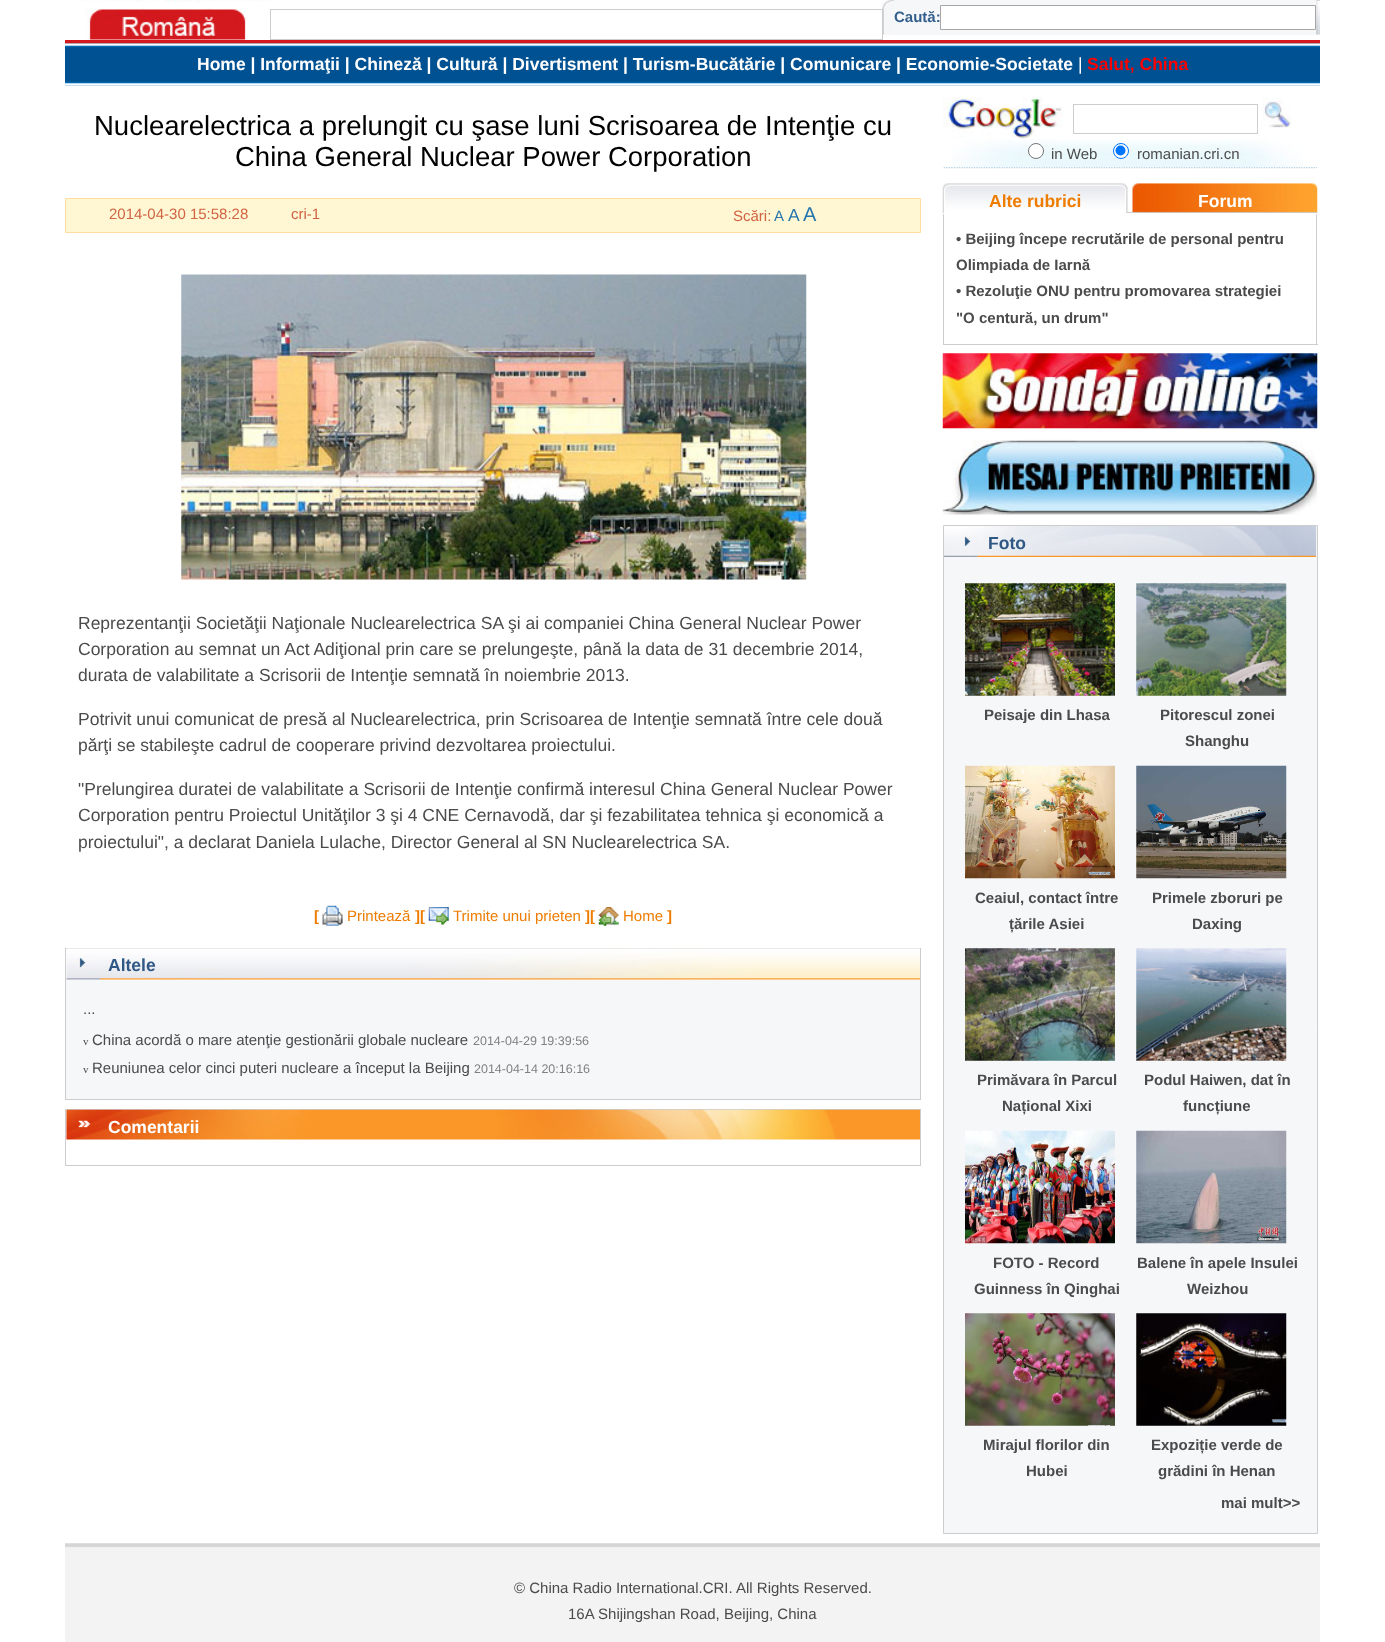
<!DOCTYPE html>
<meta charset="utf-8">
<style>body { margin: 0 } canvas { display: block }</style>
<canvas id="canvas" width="1385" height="1642"></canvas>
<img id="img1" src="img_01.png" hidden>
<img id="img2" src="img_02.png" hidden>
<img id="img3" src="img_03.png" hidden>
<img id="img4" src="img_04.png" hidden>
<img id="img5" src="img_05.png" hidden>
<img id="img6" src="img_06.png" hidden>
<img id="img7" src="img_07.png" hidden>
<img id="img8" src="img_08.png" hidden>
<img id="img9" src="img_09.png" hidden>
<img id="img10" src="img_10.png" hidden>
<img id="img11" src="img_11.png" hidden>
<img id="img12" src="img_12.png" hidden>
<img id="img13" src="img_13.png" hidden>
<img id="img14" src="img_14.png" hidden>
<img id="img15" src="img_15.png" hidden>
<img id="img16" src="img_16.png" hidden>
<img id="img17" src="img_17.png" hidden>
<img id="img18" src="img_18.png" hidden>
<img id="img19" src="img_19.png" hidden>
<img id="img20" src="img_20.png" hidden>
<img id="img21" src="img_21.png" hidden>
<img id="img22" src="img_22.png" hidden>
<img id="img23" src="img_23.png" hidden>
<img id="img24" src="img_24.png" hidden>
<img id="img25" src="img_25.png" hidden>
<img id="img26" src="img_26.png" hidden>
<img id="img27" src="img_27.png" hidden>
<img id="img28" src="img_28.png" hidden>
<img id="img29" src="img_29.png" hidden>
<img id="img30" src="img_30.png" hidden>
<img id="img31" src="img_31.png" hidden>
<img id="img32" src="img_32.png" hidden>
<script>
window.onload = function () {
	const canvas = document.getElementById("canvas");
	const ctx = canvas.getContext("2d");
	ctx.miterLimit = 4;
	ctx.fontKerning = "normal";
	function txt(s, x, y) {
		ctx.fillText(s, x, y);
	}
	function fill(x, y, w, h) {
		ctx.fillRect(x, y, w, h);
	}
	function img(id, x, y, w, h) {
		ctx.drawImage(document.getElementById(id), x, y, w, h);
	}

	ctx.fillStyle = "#FFFFFF";
	fill(0, 0, 1385, 1642);
	img("img1", 85, 8, 161, 32);
	ctx.fillStyle = "#F6F7F9";
	fill(882, 0, 438, 35);
	ctx.strokeStyle = "#CDCDCD";
	ctx.strokeRect(270.5, 9.5, 612, 30);
	img("img2", 79, 0, 190, 2);
	img("img3", 882, 0, 12, 35);
	ctx.fillStyle = "#FFFFFF";
	ctx.beginPath();
	ctx.rect(940.5, 5.5, 375, 24);
	ctx.fill();
	ctx.strokeStyle = "#A6A6A6";
	ctx.stroke();
	img("img4", 1316, 0, 4, 35);
	ctx.fillStyle = "#D3191E";
	fill(65, 40, 1255, 4);
	img("img5", 65, 43, 1255, 43);
	ctx.fillStyle = "#FFF7D4";
	ctx.beginPath();
	ctx.rect(65.5, 198.5, 855, 34);
	ctx.fill();
	ctx.strokeStyle = "#FFDDA0";
	ctx.stroke();
	img("img6", 181, 274, 626, 306);
	img("img7", 322, 905, 21, 21);
	img("img8", 428, 907, 21, 18);
	img("img9", 598, 907, 21, 19);
	ctx.strokeStyle = "#CDCDCD";
	ctx.strokeRect(65.5, 948.5, 855, 151);
	img("img10", 66, 948, 854, 32);
	ctx.fillStyle = "#F6F7F9";
	fill(66, 980, 854, 119);
	ctx.strokeRect(65.5, 1109.5, 855, 56);
	img("img11", 66, 1109, 854, 31);
	img("img12", 942, 97, 121, 42);
	ctx.strokeRect(1073.5, 104.5, 184, 29);
	img("img13", 1262, 97, 29, 31);
	img("img14", 952, 139, 351, 28);
	ctx.fillStyle = "#FFFFFF";
	ctx.beginPath();
	ctx.arc(1036, 151, 7.5, 0, Math.PI * 2);
	ctx.fill();
	ctx.strokeStyle = "#767676";
	ctx.stroke();
	ctx.beginPath();
	ctx.arc(1121, 151, 7.5, 0, Math.PI * 2);
	ctx.fill();
	ctx.strokeStyle = "#0075FF";
	ctx.stroke();
	ctx.fillStyle = "#0075FF";
	ctx.beginPath();
	ctx.arc(1120.5, 150.5, 5, 0, Math.PI * 2);
	ctx.fill();
	img("img15", 943, 167, 375, 2);
	img("img16", 942, 211, 376, 2);
	img("img17", 942, 183, 186, 30);
	img("img18", 1132, 183, 186, 30);
	ctx.fillStyle = "#CDCDCD";
	fill(943, 344, 375, 1);
	fill(1316, 214, 1, 130);
	fill(943, 214, 1, 130);
	img("img19", 942, 353, 376, 76);
	img("img20", 942, 439, 376, 76);
	ctx.fillStyle = "#F6F7F9";
	ctx.beginPath();
	ctx.rect(943.5, 525.5, 374, 1008);
	ctx.fill();
	ctx.strokeStyle = "#CDCDCD";
	ctx.stroke();
	img("img21", 944, 526, 373, 31);
	img("img22", 965, 583, 150, 113);
	img("img23", 1136, 583, 151, 113);
	img("img24", 965, 765, 150, 114);
	img("img25", 1136, 765, 151, 114);
	img("img26", 965, 948, 150, 113);
	img("img27", 1136, 948, 151, 113);
	img("img28", 965, 1130, 150, 114);
	img("img29", 1136, 1130, 151, 114);
	img("img30", 965, 1313, 150, 113);
	img("img31", 1136, 1313, 151, 113);
	img("img32", 65, 1543, 1255, 99);
	ctx.font = "bold 15px Liberation Sans";
	ctx.fillStyle = "#325F8B";
	txt("Caută:", 894, 22);
	ctx.font = "bold 17.5px Liberation Sans";
	ctx.fillStyle = "#FFFFFF";
	txt("Home | Informaţii | Chineză | Cultură | Divertisment | Turism-Bucătărie | Comunicare | Economie-Societate", 197, 70);
	ctx.font = "17.5px Liberation Sans";
	txt("|", 1078, 70);
	ctx.font = "bold 17.5px Liberation Sans";
	ctx.fillStyle = "#FF0000";
	txt("Salut, China", 1087, 70);
	ctx.font = "27.5px Liberation Sans";
	ctx.fillStyle = "#000000";
	txt("Nuclearelectrica a prelungit cu şase luni Scrisoarea de Intenţie cu", 94, 135);
	txt("China General Nuclear Power Corporation", 235, 166);
	ctx.font = "15px Liberation Sans";
	ctx.fillStyle = "#D16342";
	txt("2014-04-30 15:58:28", 109, 219);
	txt("cri-1", 291, 219);
	txt("Scări:", 733, 221);
	ctx.fillStyle = "#2575AD";
	txt("A", 774, 221);
	ctx.font = "17.5px Liberation Sans";
	txt("A", 788, 221);
	ctx.font = "20px Liberation Sans";
	txt("A", 803, 221);
	ctx.font = "17.5px Liberation Sans";
	ctx.fillStyle = "#4B4B4B";
	txt("Reprezentanţii Societăţii Naţionale Nuclearelectrica SA şi ai companiei China General Nuclear Power", 78, 629);
	txt("Corporation au semnat un Act Adiţional prin care se prelungeşte, până la data de 31 decembrie 2014,", 78, 655);
	txt("durata de valabilitate a Scrisorii de Intenţie semnată în noiembrie 2013.", 78, 681);
	txt("Potrivit unui comunicat de presă al Nuclearelectrica, prin Scrisoarea de Intenţie semnată între cele două", 78, 725);
	txt("părţi se stabileşte cadrul de cooperare privind dezvoltarea proiectului.", 78, 751);
	txt("\"Prelungirea duratei de valabilitate a Scrisorii de Intenţie confirmă interesul China General Nuclear Power", 78, 795);
	txt("Corporation pentru Proiectul Unităţilor 3 şi 4 CNE Cernavodă, dar şi fezabilitatea tehnica şi economică a", 78, 821);
	txt("proiectului\", a declarat Daniela Lulache, Director General al SN Nuclearelectrica SA.", 78, 848);
	ctx.font = "bold 15px Liberation Sans";
	ctx.fillStyle = "#EE7C01";
	txt("[", 314, 921);
	ctx.font = "15px Liberation Sans";
	txt("Printează", 347, 921);
	ctx.font = "bold 15px Liberation Sans";
	txt("][", 415, 921);
	ctx.font = "15px Liberation Sans";
	txt("Trimite unui prieten", 453, 921);
	ctx.font = "bold 15px Liberation Sans";
	txt("][", 585, 921);
	ctx.font = "15px Liberation Sans";
	txt("Home", 623, 921);
	ctx.font = "bold 15px Liberation Sans";
	txt("]", 667, 921);
	ctx.font = "bold 17.5px Liberation Sans";
	ctx.fillStyle = "#2F5884";
	txt("Altele", 108, 971);
	ctx.font = "15px Liberation Sans";
	ctx.fillStyle = "#4B4B4B";
	txt("...", 83, 1014);
	ctx.font = "11px Liberation Serif";
	txt("v", 83, 1045);
	ctx.font = "15px Liberation Sans";
	txt("China acordă o mare atenţie gestionării globale nucleare", 92, 1045);
	ctx.font = "12.5px Liberation Sans";
	ctx.fillStyle = "#808080";
	txt("2014-04-29 19:39:56", 473, 1045);
	ctx.font = "11px Liberation Serif";
	ctx.fillStyle = "#4B4B4B";
	txt("v", 83, 1073);
	ctx.font = "15px Liberation Sans";
	txt("Reuniunea celor cinci puteri nucleare a început la Beijing", 92, 1073);
	ctx.font = "12.5px Liberation Sans";
	ctx.fillStyle = "#808080";
	txt("2014-04-14 20:16:16", 474, 1073);
	ctx.font = "bold 17.5px Liberation Sans";
	ctx.fillStyle = "#FFFFFF";
	txt("Comentarii", 108, 1133);
	ctx.font = "15px Liberation Sans";
	ctx.fillStyle = "#4B4B4B";
	txt("in Web", 1051, 159);
	txt("romanian.cri.cn", 1137, 159);
	ctx.font = "bold 17.5px Liberation Sans";
	ctx.fillStyle = "#EE7C01";
	txt("Alte rubrici", 989, 207);
	ctx.fillStyle = "#FFFFFF";
	txt("Forum", 1198, 207);
	ctx.font = "bold 15px Liberation Sans";
	ctx.fillStyle = "#4B4B4B";
	txt("• Beijing începe recrutările de personal pentru", 956, 244);
	txt("Olimpiada de Iarnă", 956, 270);
	txt("• Rezoluţie ONU pentru promovarea strategiei", 956, 296);
	txt("\"O centură, un drum\"", 956, 323);
	ctx.font = "bold 17.5px Liberation Sans";
	ctx.fillStyle = "#2F5884";
	txt("Foto", 988, 549);
	ctx.font = "bold 15px Liberation Sans";
	ctx.fillStyle = "#4B4B4B";
	txt("Peisaje din Lhasa", 984, 720);
	txt("Pitorescul zonei", 1160, 720);
	txt("Shanghu", 1185, 746);
	txt("Ceaiul, contact între", 975, 903);
	txt("țările Asiei", 1009, 929);
	txt("Primele zboruri pe", 1152, 903);
	txt("Daxing", 1192, 929);
	txt("Primăvara în Parcul", 977, 1085);
	txt("Național Xixi", 1002, 1111);
	txt("Podul Haiwen, dat în", 1144, 1085);
	txt("funcțiune", 1183, 1111);
	txt("FOTO - Record", 993, 1268);
	txt("Guinness în Qinghai", 974, 1294);
	txt("Balene în apele Insulei", 1137, 1268);
	txt("Weizhou", 1187, 1294);
	txt("Mirajul florilor din", 983, 1450);
	txt("Hubei", 1026, 1476);
	txt("Expoziție verde de", 1151, 1450);
	txt("grădini în Henan", 1158, 1476);
	txt("mai mult>>", 1221, 1508);
	ctx.font = "15px Liberation Sans";
	txt("© China Radio International.CRI. All Rights Reserved.", 514, 1593);
	txt("16A Shijingshan Road, Beijing, China", 568, 1619);
};
</script>
